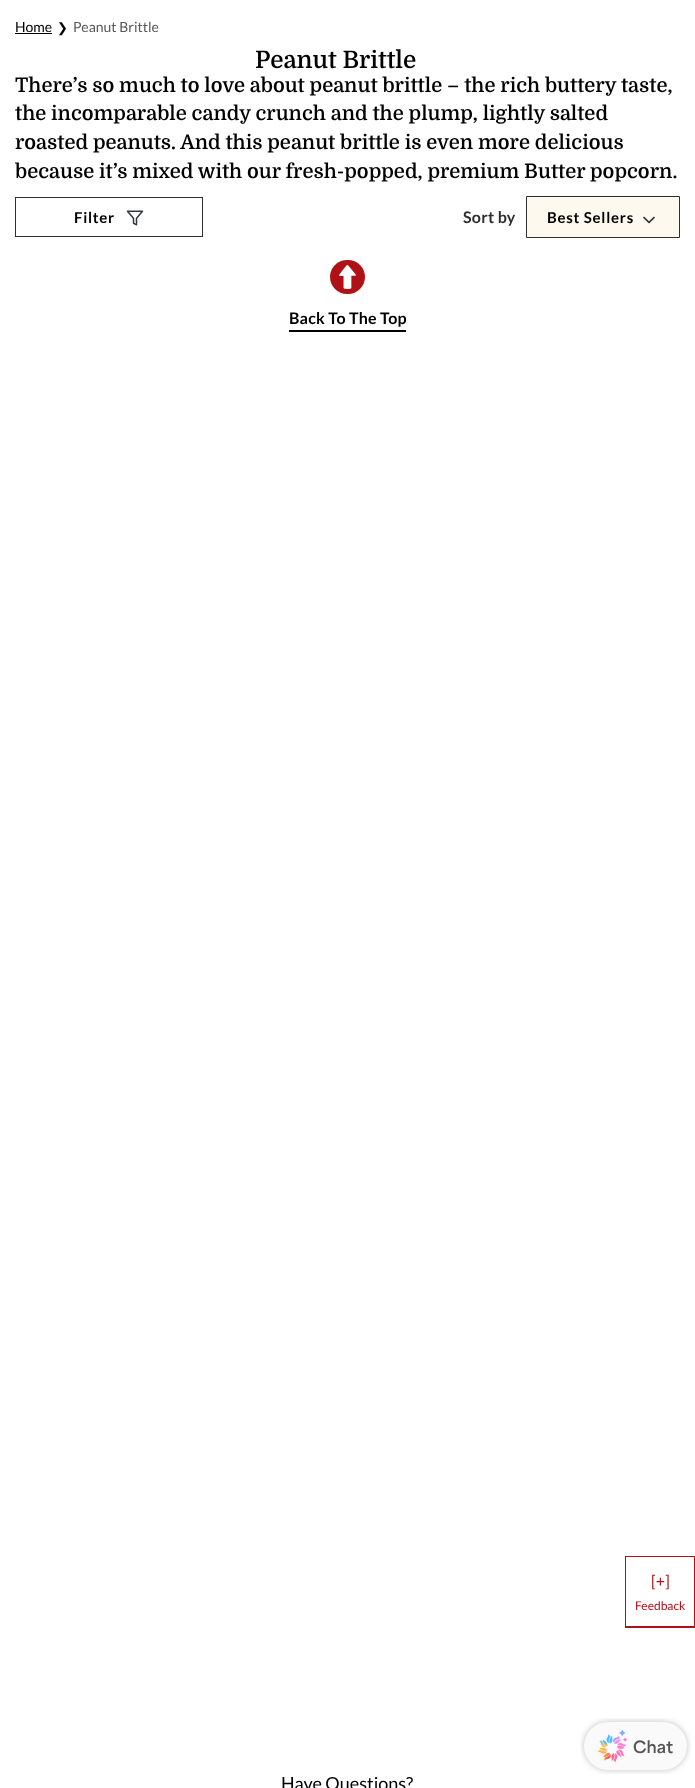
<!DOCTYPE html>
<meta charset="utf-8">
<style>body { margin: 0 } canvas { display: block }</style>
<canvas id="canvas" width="695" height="1788"></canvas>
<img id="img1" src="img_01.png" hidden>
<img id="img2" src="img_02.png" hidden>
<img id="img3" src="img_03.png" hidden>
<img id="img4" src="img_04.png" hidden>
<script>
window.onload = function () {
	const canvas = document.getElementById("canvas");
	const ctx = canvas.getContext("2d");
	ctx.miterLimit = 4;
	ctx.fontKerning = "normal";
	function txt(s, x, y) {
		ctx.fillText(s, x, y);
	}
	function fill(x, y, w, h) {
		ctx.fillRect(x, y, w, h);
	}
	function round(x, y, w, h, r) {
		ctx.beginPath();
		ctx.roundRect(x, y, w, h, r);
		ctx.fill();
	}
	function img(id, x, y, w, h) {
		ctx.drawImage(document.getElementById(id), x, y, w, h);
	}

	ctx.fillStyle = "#FFFFFF";
	fill(0, 0, 695, 1788);
	ctx.fillStyle = "#000000";
	fill(15, 33, 37, 1);
	ctx.strokeStyle = "#2F2F2F";
	ctx.strokeRect(15.5, 197.5, 187, 39);
	img("img1", 126, 210, 18, 16);
	ctx.fillStyle = "#FDF9EF";
	ctx.beginPath();
	ctx.rect(526.5, 196.5, 153, 41);
	ctx.fill();
	ctx.stroke();
	img("img2", 643, 216, 12, 8);
	ctx.fillStyle = "#B01116";
	round(330, 260, 35, 34, 17);
	img("img3", 339, 265, 17, 24);
	ctx.fillStyle = "#000000";
	fill(289, 330, 117, 2);
	ctx.strokeStyle = "#B01116";
	ctx.strokeRect(625.5, 1556.5, 69, 71);
	ctx.fillStyle = "#B01116";
	fill(626, 1626, 68, 1);
	img("img4", 580, 1718, 111, 56);
	ctx.font = "14px Lato";
	ctx.fillStyle = "#000000";
	txt("Home", 15, 32);
	ctx.font = "13px DejaVu Sans";
	txt("❯", 57, 32);
	ctx.font = "14px Lato";
	ctx.fillStyle = "#595959";
	txt("Peanut Brittle", 73, 32);
	ctx.font = "600 24px Domine";
	ctx.fillStyle = "#000000";
	txt("Peanut Brittle", 255, 68);
	ctx.font = "600 20px Domine";
	txt("There’s so much to love about peanut brittle – the rich buttery taste,", 15, 92);
	txt("the incomparable candy crunch and the plump, lightly salted", 15, 120);
	txt("roasted peanuts. And this peanut brittle is even more delicious", 15, 149);
	txt("because it’s mixed with our fresh-popped, premium Butter popcorn.", 15, 178);
	ctx.letterSpacing = "0.75px";
	ctx.font = "bold 15px Lato";
	txt("Filter", 74, 223);
	ctx.letterSpacing = "0.25px";
	ctx.font = "bold 16px Lato";
	ctx.fillStyle = "#2F2F2F";
	txt("Sort by", 463, 223);
	ctx.letterSpacing = "0.75px";
	ctx.font = "bold 15px Lato";
	ctx.fillStyle = "#000000";
	txt("Best Sellers", 547, 223);
	ctx.letterSpacing = "0.2px";
	ctx.font = "bold 16px Lato";
	txt("Back To The Top", 289, 324);
	ctx.letterSpacing = "0px";
	ctx.font = "16px Lato";
	ctx.fillStyle = "#B01116";
	txt("[+]", 651, 1587);
	ctx.font = "12px Lato";
	txt("Feedback", 635, 1610);
	ctx.font = "18px Lato";
	ctx.fillStyle = "#000000";
	txt("Have Questions?", 281, 1790);
};
</script>
